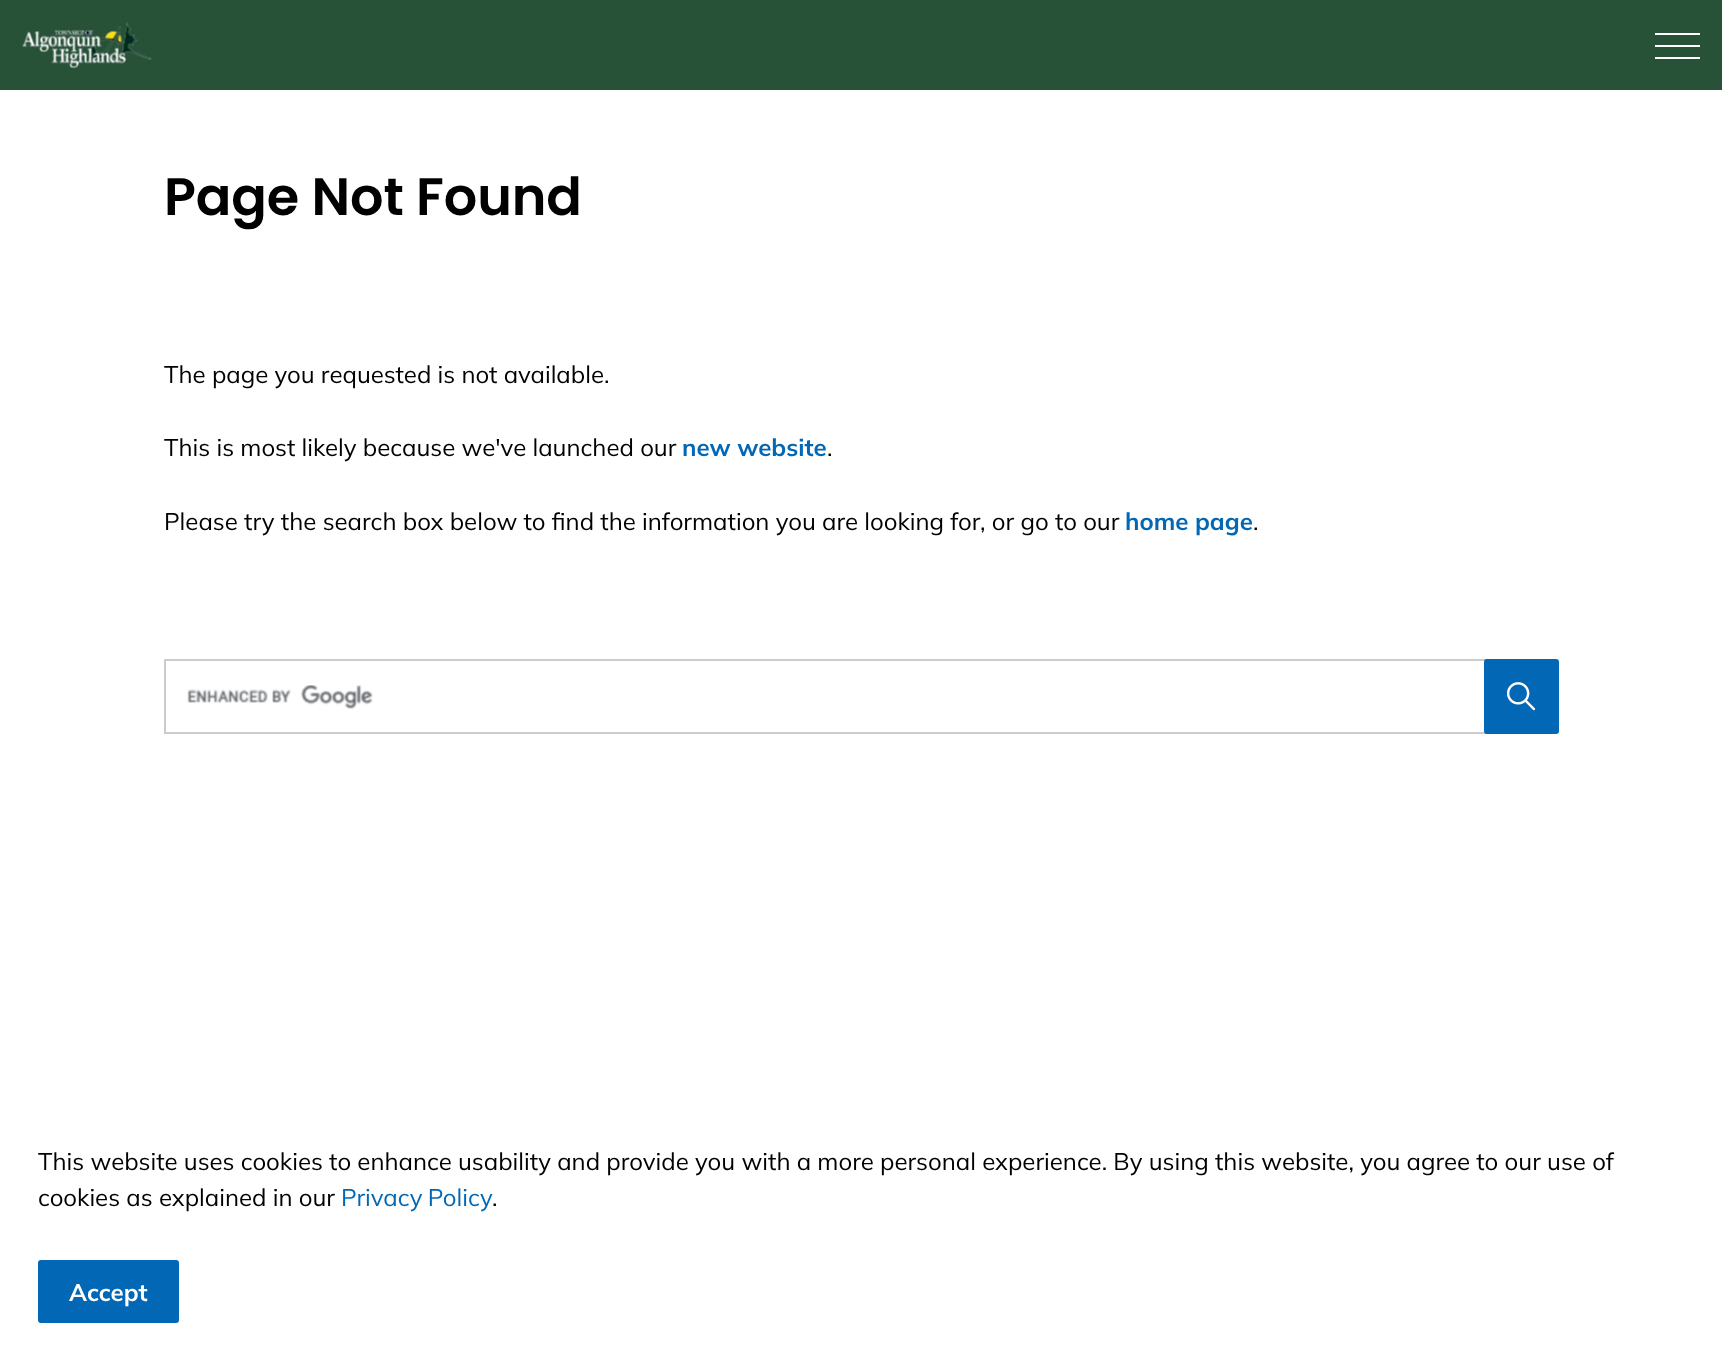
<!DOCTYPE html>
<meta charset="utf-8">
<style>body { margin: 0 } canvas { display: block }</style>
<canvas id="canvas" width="1722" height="1367"></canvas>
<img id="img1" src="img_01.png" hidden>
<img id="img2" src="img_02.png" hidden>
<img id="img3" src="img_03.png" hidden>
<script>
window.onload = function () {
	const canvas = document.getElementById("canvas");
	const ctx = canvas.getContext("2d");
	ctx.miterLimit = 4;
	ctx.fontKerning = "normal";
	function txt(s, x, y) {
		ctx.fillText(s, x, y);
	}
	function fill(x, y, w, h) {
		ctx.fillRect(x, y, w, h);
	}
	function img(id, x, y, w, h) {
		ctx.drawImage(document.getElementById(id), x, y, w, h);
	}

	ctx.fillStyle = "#FFFFFF";
	fill(0, 0, 1722, 1367);
	ctx.fillStyle = "#285238";
	fill(0, 0, 1722, 90);
	img("img1", 22, 22, 130, 46);
	ctx.fillStyle = "#FFFFFF";
	fill(1655, 45, 45, 2);
	fill(1655, 33, 45, 2);
	fill(1655, 57, 45, 2);
	img("img2", 187, 685, 186, 24);
	ctx.strokeStyle = "#CCCCCC";
	ctx.lineWidth = 2;
	ctx.strokeRect(165, 660, 1379, 73);
	ctx.fillStyle = "#0268B6";
	ctx.beginPath();
	ctx.roundRect(1485, 660, 73, 73, 2);
	ctx.fill();
	ctx.strokeStyle = "#0268B6";
	ctx.stroke();
	img("img3", 1506, 682, 30, 29);
	ctx.beginPath();
	ctx.roundRect(39, 1261, 139, 61, 2);
	ctx.fill();
	ctx.stroke();
	ctx.letterSpacing = "-0.1px";
	ctx.font = "600 52.5px Poppins";
	ctx.fillStyle = "#000000";
	txt("Page Not Found", 164, 215);
	ctx.letterSpacing = "0px";
	ctx.font = "24px Mulish";
	txt("The page you requested is not available.", 164, 383);
	txt("This is most likely because we've launched our", 164, 456);
	ctx.font = "bold 24px Mulish";
	ctx.fillStyle = "#0268B6";
	txt("new website", 682, 456);
	ctx.font = "24px Mulish";
	ctx.fillStyle = "#000000";
	txt(".", 827, 456);
	txt("Please try the search box below to find the information you are looking for, or go to our", 164, 530);
	ctx.font = "bold 24px Mulish";
	ctx.fillStyle = "#0268B6";
	txt("home page", 1125, 530);
	ctx.font = "24px Mulish";
	ctx.fillStyle = "#000000";
	txt(".", 1253, 530);
	txt("This website uses cookies to enhance usability and provide you with a more personal experience. By using this website, you agree to our use of", 38, 1170);
	txt("cookies as explained in our", 38, 1206);
	ctx.wordSpacing = "-1px";
	ctx.fillStyle = "#0268B6";
	txt("Privacy Policy", 341, 1206);
	ctx.wordSpacing = "0px";
	ctx.fillStyle = "#000000";
	txt(".", 492, 1206);
	ctx.font = "bold 24px Mulish";
	ctx.fillStyle = "#FFFFFF";
	txt("Accept", 69, 1301);
};
</script>
